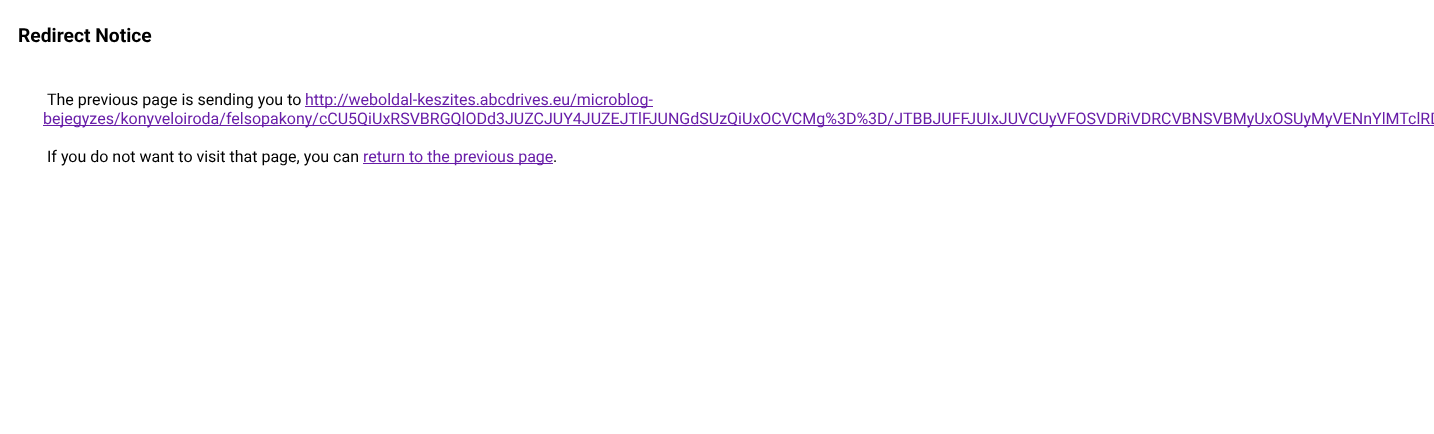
<!DOCTYPE html>
<meta charset="utf-8">
<style>body { margin: 0 } canvas { display: block }</style>
<canvas id="canvas" width="1434" height="434"></canvas>
<script>
window.onload = function () {
	const canvas = document.getElementById("canvas");
	const ctx = canvas.getContext("2d");
	ctx.miterLimit = 4;
	ctx.fontKerning = "normal";
	function txt(s, x, y) {
		ctx.fillText(s, x, y);
	}
	function fill(x, y, w, h) {
		ctx.fillRect(x, y, w, h);
	}

	ctx.fillStyle = "#FFFFFF";
	fill(0, 0, 1434, 434);
	ctx.fillStyle = "#681DA8";
	fill(305, 106, 348, 1);
	fill(43, 125, 1391, 1);
	fill(363, 163, 190, 1);
	ctx.font = "bold 19.25px Roboto";
	ctx.fillStyle = "#000000";
	txt("Redirect Notice", 18, 42);
	ctx.font = "16px Roboto";
	txt("The previous page is sending you to", 47, 105);
	ctx.fillStyle = "#681DA8";
	txt("http://weboldal-keszites.abcdrives.eu/microblog-", 305, 105);
	txt("bejegyzes/konyveloiroda/felsopakony/cCU5QiUxRSVBRGQlODd3JUZCJUY4JUZEJTlFJUNGdSUzQiUxOCVCMg%3D%3D/JTBBJUFFJUIxJUVCUyVFOSVDRiVDRCVBNSVBMyUxOSUyMyVENnYlMTclRD", 43, 124);
	ctx.fillStyle = "#000000";
	txt("If you do not want to visit that page, you can", 47, 162);
	ctx.fillStyle = "#681DA8";
	txt("return to the previous page", 363, 162);
	ctx.fillStyle = "#000000";
	txt(".", 553, 162);
};
</script>
